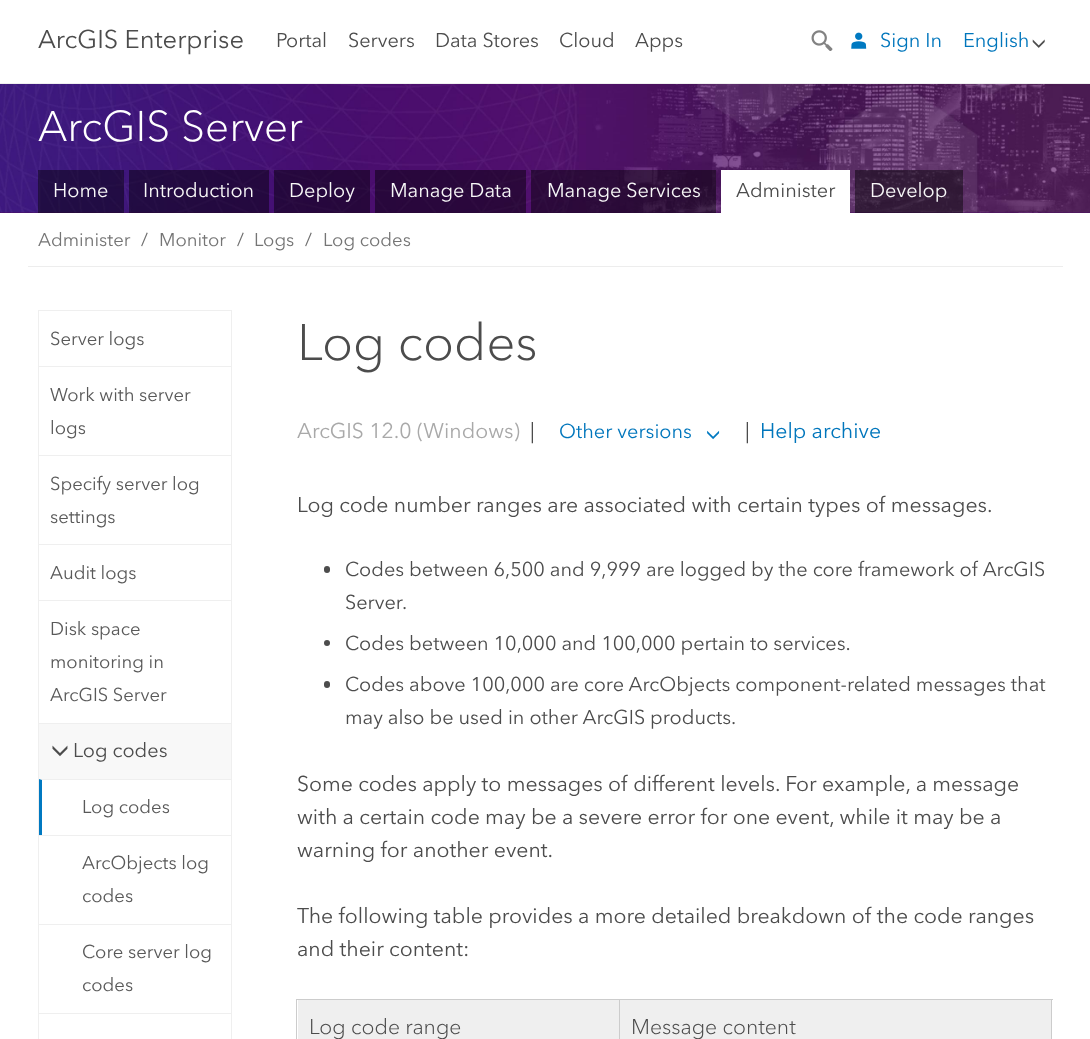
<!DOCTYPE html>
<meta charset="utf-8">
<style>body { margin: 0 } canvas { display: block }</style>
<canvas id="canvas" width="1090" height="1039"></canvas>
<img id="img1" src="img_01.png" hidden>
<img id="img2" src="img_02.png" hidden>
<img id="img3" src="img_03.png" hidden>
<img id="img4" src="img_04.png" hidden>
<img id="img5" src="img_05.png" hidden>
<img id="img6" src="img_06.png" hidden>
<script>
window.onload = function () {
	const canvas = document.getElementById("canvas");
	const ctx = canvas.getContext("2d");
	ctx.miterLimit = 4;
	ctx.fontKerning = "normal";
	function txt(s, x, y) {
		ctx.fillText(s, x, y);
	}
	function fill(x, y, w, h) {
		ctx.fillRect(x, y, w, h);
	}
	function round(x, y, w, h, r) {
		ctx.beginPath();
		ctx.roundRect(x, y, w, h, r);
		ctx.fill();
	}
	function img(id, x, y, w, h) {
		ctx.drawImage(document.getElementById(id), x, y, w, h);
	}

	ctx.fillStyle = "#FFFFFF";
	fill(0, 0, 1090, 1039);
	ctx.fillStyle = "#EFEFEF";
	fill(0, 83, 1090, 1);
	img("img1", 811, 30, 22, 21);
	img("img2", 851, 32, 16, 17);
	img("img3", 1032, 39, 13, 9);
	ctx.fillStyle = "#4C1063";
	fill(0, 212, 1090, 1);
	img("img4", 0, 84, 1090, 129);
	ctx.fillStyle = "rgba(0, 0, 0, 0.45)";
	fill(38, 170, 86, 43);
	fill(129, 170, 140, 43);
	fill(274, 170, 96, 43);
	fill(375, 170, 151, 43);
	fill(531, 170, 185, 43);
	ctx.fillStyle = "#FFFFFF";
	fill(721, 170, 129, 43);
	ctx.fillStyle = "rgba(0, 0, 0, 0.45)";
	fill(855, 170, 108, 43);
	ctx.fillStyle = "#EDEDED";
	fill(28, 266, 1035, 1);
	ctx.fillStyle = "#EFEFEF";
	fill(231, 310, 1, 729);
	fill(38, 310, 1, 729);
	fill(39, 310, 192, 1);
	fill(39, 366, 192, 1);
	fill(39, 455, 192, 1);
	fill(39, 544, 192, 1);
	fill(39, 600, 192, 1);
	ctx.fillStyle = "#F8F8F8";
	fill(39, 724, 192, 55);
	ctx.fillStyle = "#EFEFEF";
	fill(39, 723, 192, 1);
	img("img5", 52, 745, 16, 12);
	ctx.beginPath();
	ctx.moveTo(39, 779);
	ctx.lineTo(231, 779);
	ctx.lineTo(231, 780);
	ctx.lineTo(42, 780);
	ctx.closePath();
	ctx.fill();
	ctx.fillStyle = "#0079C1";
	ctx.beginPath();
	ctx.moveTo(39, 835);
	ctx.lineTo(39, 779);
	ctx.lineTo(42, 780);
	ctx.lineTo(42, 835);
	ctx.closePath();
	ctx.fill();
	ctx.fillStyle = "#EFEFEF";
	fill(39, 835, 192, 1);
	fill(39, 924, 192, 1);
	fill(39, 1013, 192, 1);
	img("img6", 707, 430, 13, 10);
	ctx.fillStyle = "#4C4C4C";
	round(324, 566, 6, 7, 3);
	ctx.beginPath();
	ctx.arc(327, 643, 3, 0, Math.PI * 2);
	ctx.fill();
	round(324, 681, 6, 7, 3);
	ctx.fillStyle = "#CCCCCC";
	fill(296, 999, 757, 1);
	fill(1051, 999, 1, 40);
	fill(296, 999, 1, 40);
	ctx.fillStyle = "#EFEFEF";
	fill(298, 1000, 753, 39);
	ctx.fillStyle = "#CCCCCC";
	fill(619, 999, 1, 40);
	ctx.font = "25.5px Avenir Next";
	ctx.fillStyle = "#4C4C4C";
	txt("ArcGIS Enterprise", 38, 48);
	ctx.font = "19.9px Avenir Next";
	txt("Portal", 276, 47);
	txt("Servers", 348, 47);
	txt("Data Stores", 435, 47);
	txt("Cloud", 559, 47);
	txt("Apps", 635, 47);
	ctx.fillStyle = "#0076BC";
	txt("Sign In", 880, 47);
	txt("English", 963, 47);
	ctx.font = "300 42.5px Avenir Next";
	ctx.fillStyle = "#FFFFFF";
	txt("ArcGIS Server", 38, 141);
	ctx.font = "19.9px Avenir Next";
	ctx.fillStyle = "#F8F8F8";
	txt("Home", 53, 197);
	txt("Introduction", 143, 197);
	txt("Deploy", 289, 197);
	txt("Manage Data", 390, 197);
	txt("Manage Services", 547, 197);
	ctx.fillStyle = "#4C4C4C";
	txt("Administer", 736, 197);
	ctx.fillStyle = "#F8F8F8";
	txt("Develop", 870, 197);
	ctx.font = "18.5px Avenir Next";
	ctx.fillStyle = "#757575";
	txt("Administer", 38, 246);
	ctx.fillStyle = "#6E6E6E";
	txt("/", 141, 246);
	ctx.fillStyle = "#757575";
	txt("Monitor", 159, 246);
	ctx.fillStyle = "#6E6E6E";
	txt("/", 237, 246);
	ctx.fillStyle = "#757575";
	txt("Logs", 254, 246);
	ctx.fillStyle = "#6E6E6E";
	txt("/", 305, 246);
	ctx.fillStyle = "#757575";
	txt("Log codes", 323, 246);
	ctx.fillStyle = "#595959";
	txt("Server logs", 50, 345);
	txt("Work with server", 50, 401);
	txt("logs", 50, 434);
	txt("Specify server log", 50, 490);
	txt("settings", 50, 523);
	txt("Audit logs", 50, 579);
	txt("Disk space", 50, 635);
	txt("monitoring in", 50, 668);
	txt("ArcGIS Server", 50, 701);
	ctx.font = "19.9px Avenir Next";
	ctx.fillStyle = "#4C4C4C";
	txt("Log codes", 73, 757);
	ctx.font = "18.5px Avenir Next";
	ctx.fillStyle = "#595959";
	txt("Log codes", 82, 813);
	txt("ArcObjects log", 82, 869);
	txt("codes", 82, 902);
	txt("Core server log", 82, 958);
	txt("codes", 82, 991);
	ctx.font = "300 51px Avenir Next";
	ctx.fillStyle = "#4C4C4C";
	txt("Log codes", 297, 360);
	ctx.font = "21.25px Avenir Next";
	ctx.fillStyle = "#A9A9A9";
	txt("ArcGIS 12.0 (Windows)", 297, 438);
	ctx.fillStyle = "#4C4C4C";
	txt("|", 530, 438);
	ctx.font = "19.9px Avenir Next";
	ctx.fillStyle = "#0076BC";
	txt("Other versions", 559, 438);
	ctx.font = "21.25px Avenir Next";
	ctx.fillStyle = "#4C4C4C";
	txt("|", 745, 438);
	ctx.fillStyle = "#0076BC";
	txt("Help archive", 760, 438);
	ctx.fillStyle = "#4C4C4C";
	txt("Log code number ranges are associated with certain types of messages.", 297, 512);
	ctx.font = "19.9px Avenir Next";
	txt("Codes between 6,500 and 9,999 are logged by the core framework of ArcGIS", 345, 576);
	txt("Server", 345, 609);
	txt(".", 402, 609);
	txt("Codes between 10,000 and 100,000 pertain to services.", 345, 650);
	txt("Codes above 100,000 are core ArcObjects component-related messages that", 345, 691);
	txt("may also be used in other ArcGIS products.", 345, 724);
	ctx.font = "21.25px Avenir Next";
	txt("Some codes apply to messages of different levels. For example, a message", 297, 791);
	txt("with a certain code may be a severe error for one event, while it may be a", 297, 824);
	txt("warning for another event.", 297, 857);
	txt("The following table provides a more detailed breakdown of the code ranges", 297, 923);
	txt("and their content:", 297, 956);
	ctx.font = "300 21.25px Avenir Next";
	txt("Log code range", 309, 1034);
	txt("Message content", 631, 1034);
};
</script>
